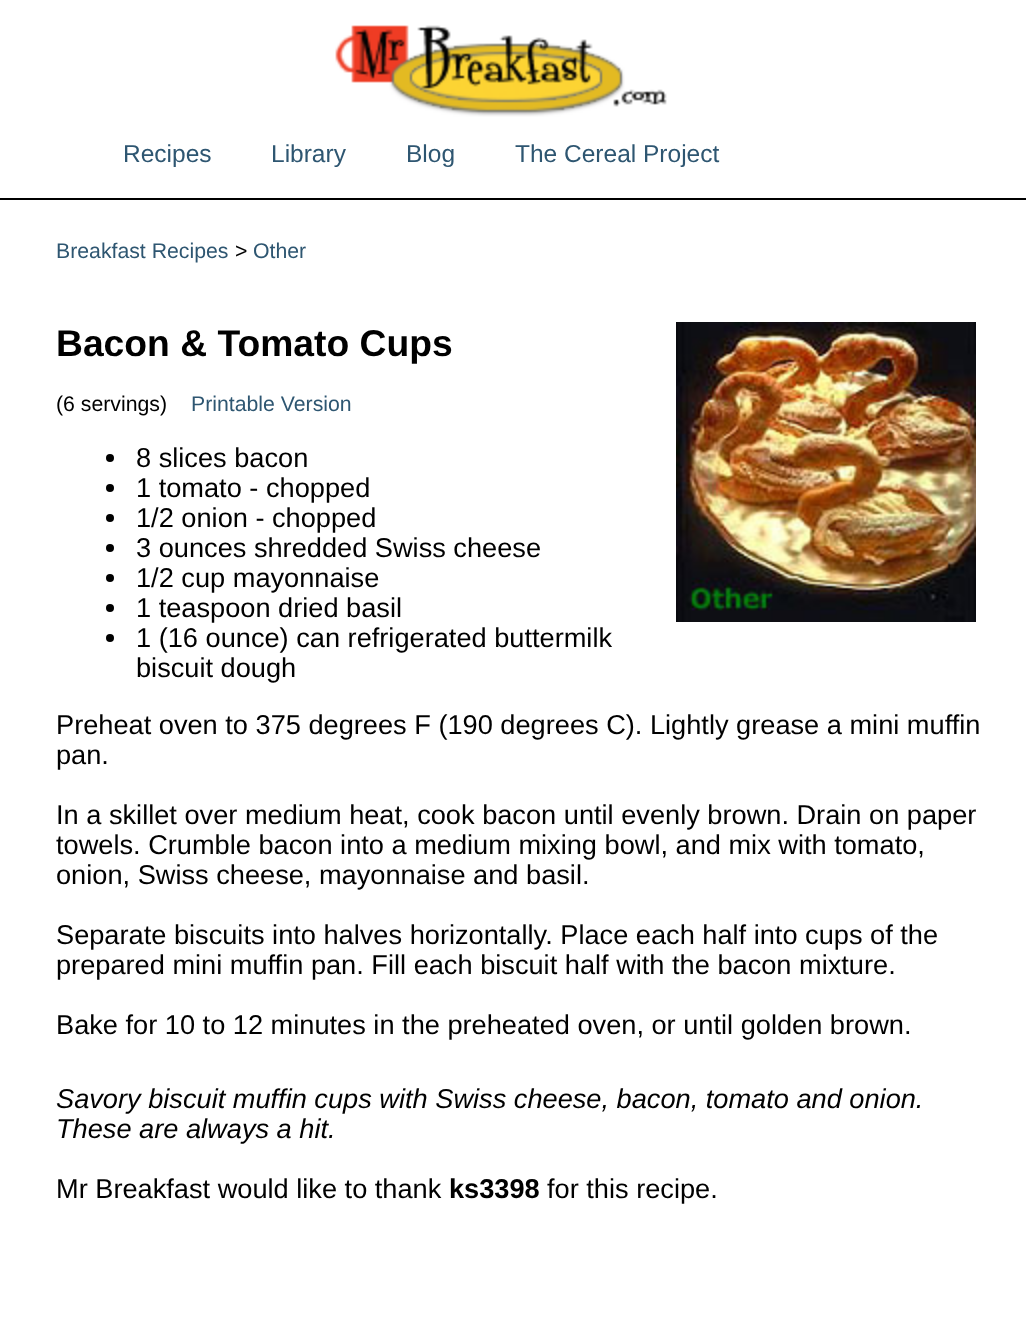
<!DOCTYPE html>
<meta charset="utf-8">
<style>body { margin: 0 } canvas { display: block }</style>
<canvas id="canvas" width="1026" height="1321"></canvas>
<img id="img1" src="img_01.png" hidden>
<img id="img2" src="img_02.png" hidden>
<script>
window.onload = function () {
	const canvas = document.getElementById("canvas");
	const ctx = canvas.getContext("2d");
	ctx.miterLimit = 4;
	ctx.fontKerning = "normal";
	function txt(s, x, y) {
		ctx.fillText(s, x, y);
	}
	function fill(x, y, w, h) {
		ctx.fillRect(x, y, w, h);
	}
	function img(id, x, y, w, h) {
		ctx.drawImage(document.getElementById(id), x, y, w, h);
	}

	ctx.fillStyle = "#FFFFFF";
	fill(0, 0, 1026, 1321);
	img("img1", 335, 25, 332, 92);
	ctx.fillStyle = "#000000";
	fill(0, 198, 1026, 2);
	img("img2", 676, 322, 300, 300);
	ctx.beginPath();
	ctx.arc(110, 458, 4, 0, Math.PI * 2);
	ctx.fill();
	ctx.beginPath();
	ctx.arc(110, 488, 4, 0, Math.PI * 2);
	ctx.fill();
	ctx.beginPath();
	ctx.arc(110, 518, 4, 0, Math.PI * 2);
	ctx.fill();
	ctx.beginPath();
	ctx.arc(110, 548, 4, 0, Math.PI * 2);
	ctx.fill();
	ctx.beginPath();
	ctx.arc(110, 578, 4, 0, Math.PI * 2);
	ctx.fill();
	ctx.beginPath();
	ctx.arc(110, 608, 4, 0, Math.PI * 2);
	ctx.fill();
	ctx.beginPath();
	ctx.arc(110, 638, 4, 0, Math.PI * 2);
	ctx.fill();
	ctx.font = "24.5px Liberation Sans";
	ctx.fillStyle = "#2E5671";
	txt("Recipes", 123, 162);
	txt("Library", 271, 162);
	txt("Blog", 406, 162);
	txt("The Cereal Project", 515, 162);
	ctx.font = "21.25px Liberation Sans";
	txt("Breakfast Recipes", 56, 258);
	ctx.fillStyle = "#000000";
	txt(">", 235, 258);
	ctx.fillStyle = "#2E5671";
	txt("Other", 253, 258);
	ctx.font = "bold 37.25px Liberation Sans";
	ctx.fillStyle = "#000000";
	txt("Bacon & Tomato Cups", 56, 356);
	ctx.font = "21.25px Liberation Sans";
	txt("(6 servings)", 56, 411);
	ctx.fillStyle = "#2E5671";
	txt("Printable Version", 191, 411);
	ctx.font = "27.2px Liberation Sans";
	ctx.fillStyle = "#000000";
	txt("8 slices bacon", 136, 467);
	txt("1 tomato - chopped", 136, 497);
	txt("1/2 onion - chopped", 136, 527);
	txt("3 ounces shredded Swiss cheese", 136, 557);
	txt("1/2 cup mayonnaise", 136, 587);
	txt("1 teaspoon dried basil", 136, 617);
	txt("1 (16 ounce) can refrigerated buttermilk", 136, 647);
	txt("biscuit dough", 136, 677);
	txt("Preheat oven to 375 degrees F (190 degrees C). Lightly grease a mini muffin", 56, 734);
	txt("pan.", 56, 764);
	txt("In a skillet over medium heat, cook bacon until evenly brown. Drain on paper", 56, 824);
	txt("towels. Crumble bacon into a medium mixing bowl, and mix with tomato,", 56, 854);
	txt("onion, Swiss cheese, mayonnaise and basil.", 56, 884);
	txt("Separate biscuits into halves horizontally. Place each half into cups of the", 56, 944);
	txt("prepared mini muffin pan. Fill each biscuit half with the bacon mixture.", 56, 974);
	txt("Bake for 10 to 12 minutes in the preheated oven, or until golden brown.", 56, 1034);
	ctx.font = "italic 27.2px Liberation Sans";
	txt("Savory biscuit muffin cups with Swiss cheese, bacon, tomato and onion.", 56, 1108);
	txt("These are always a hit.", 56, 1138);
	ctx.font = "27.2px Liberation Sans";
	txt("Mr Breakfast would like to thank", 56, 1198);
	ctx.font = "bold 27.2px Liberation Sans";
	txt("ks3398", 449, 1198);
	ctx.font = "27.2px Liberation Sans";
	txt("for this recipe.", 547, 1198);
};
</script>
